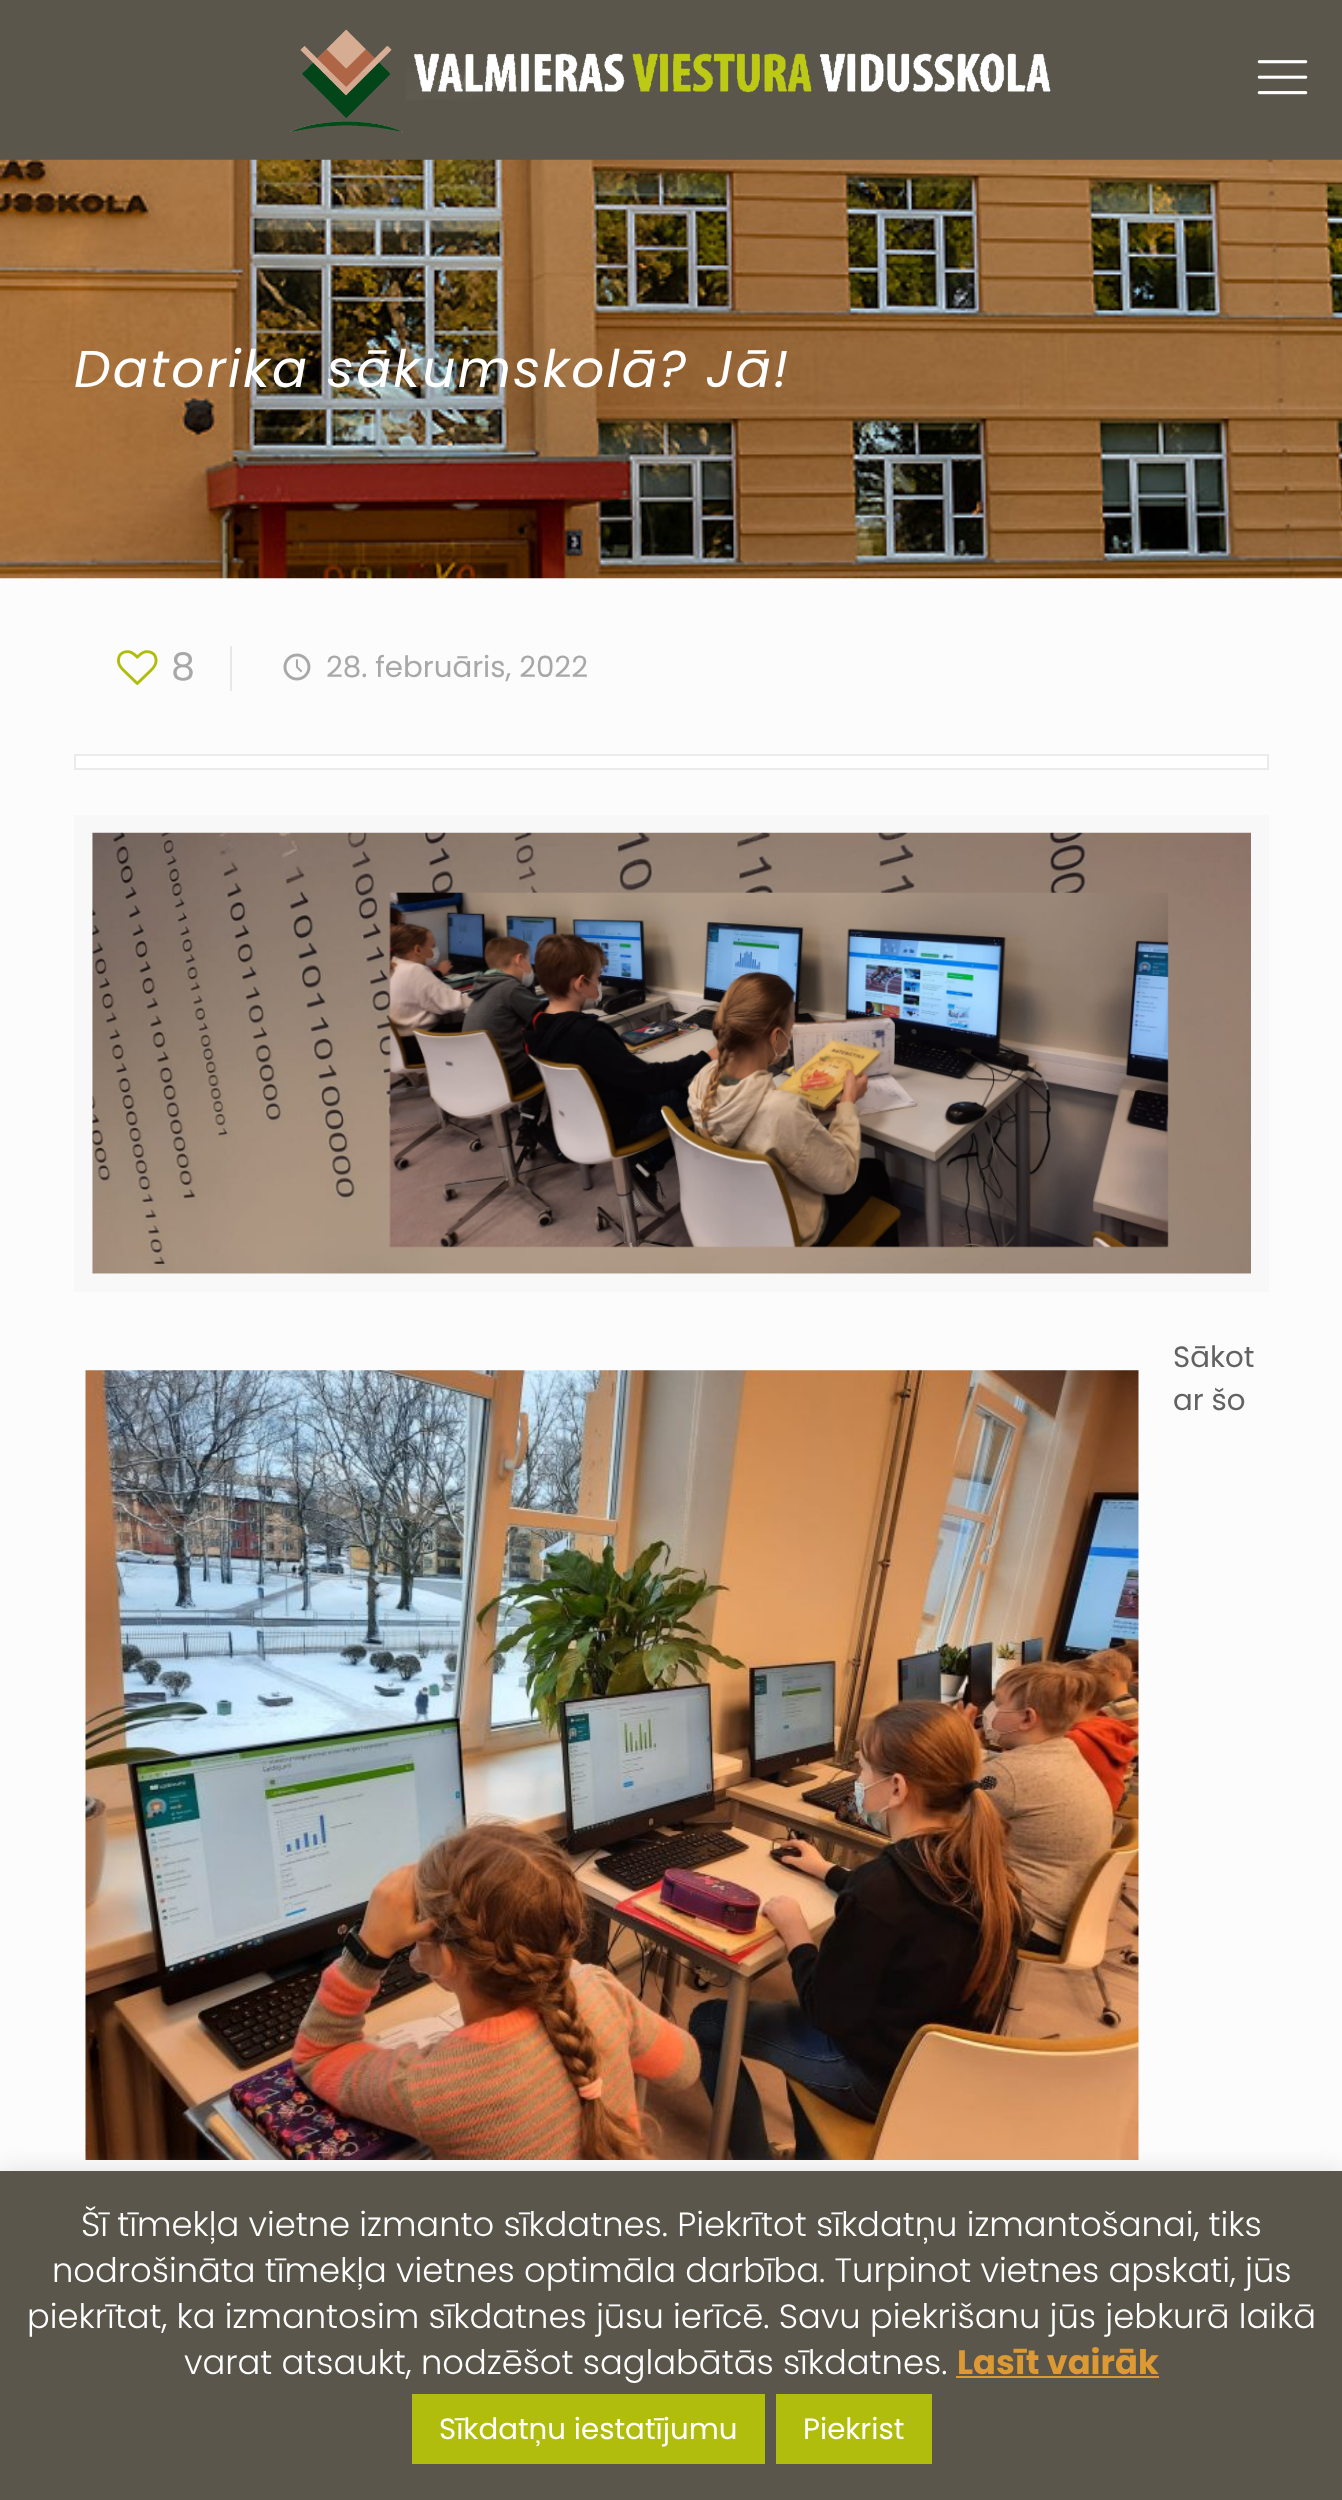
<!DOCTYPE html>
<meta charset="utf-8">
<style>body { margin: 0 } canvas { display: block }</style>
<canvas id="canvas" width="1342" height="2500"></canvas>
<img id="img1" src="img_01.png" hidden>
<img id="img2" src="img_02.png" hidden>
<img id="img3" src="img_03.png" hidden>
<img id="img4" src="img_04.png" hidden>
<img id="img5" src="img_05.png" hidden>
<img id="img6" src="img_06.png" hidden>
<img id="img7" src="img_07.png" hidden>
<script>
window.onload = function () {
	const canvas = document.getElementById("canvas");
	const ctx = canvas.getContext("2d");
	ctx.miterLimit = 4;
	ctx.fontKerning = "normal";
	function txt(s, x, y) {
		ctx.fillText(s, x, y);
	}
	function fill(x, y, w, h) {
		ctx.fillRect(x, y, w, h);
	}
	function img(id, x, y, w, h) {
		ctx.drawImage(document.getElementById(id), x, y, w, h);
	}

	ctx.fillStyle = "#FCFCFC";
	fill(0, 0, 1342, 2500);
	ctx.fillStyle = "#5A564B";
	fill(0, 0, 1342, 160);
	img("img1", 290, 29, 761, 104);
	img("img2", 1257, 60, 51, 35);
	img("img3", 0, 159, 1342, 420);
	img("img4", 117, 650, 41, 35);
	ctx.fillStyle = "#E8E8E8";
	fill(230, 646, 2, 45);
	img("img5", 283, 653, 28, 28);
	ctx.fillStyle = "#FFFFFF";
	ctx.beginPath();
	ctx.rect(75, 755, 1193, 14);
	ctx.fill();
	ctx.strokeStyle = "#EBEBEB";
	ctx.lineWidth = 2;
	ctx.stroke();
	ctx.strokeStyle = "#F8F8F8";
	ctx.lineWidth = 18;
	ctx.strokeRect(83, 824, 1177, 459);
	img("img6", 92, 832, 1159, 442);
	img("img7", 85, 1370, 1054, 790);
	ctx.fillStyle = "rgba(172, 171, 171, 0.3)";
	ctx.filter = "blur(11px)";
	ctx.beginPath();
	ctx.rect(0, 2169, 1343, 331);
	ctx.fill();
	ctx.filter = "none";
	ctx.fillStyle = "#5A564B";
	fill(0, 2171, 1342, 329);
	ctx.fillStyle = "#DD9933";
	fill(956, 2376, 203, 2);
	ctx.fillStyle = "#B1BD0C";
	fill(412, 2394, 353, 70);
	fill(776, 2394, 156, 70);
	ctx.letterSpacing = "2.25px";
	ctx.font = "italic 51.75px Poppins";
	ctx.fillStyle = "#FFFFFF";
	txt("Datorika sākumskolā? Jā!", 74, 387);
	ctx.letterSpacing = "0px";
	ctx.font = "38px Poppins";
	ctx.fillStyle = "#A8A8A8";
	txt("8", 171, 680);
	ctx.font = "29.25px Poppins";
	txt("28. februāris, 2022", 326, 677);
	ctx.fillStyle = "#626262";
	txt("Sākot", 1173, 1367);
	txt("ar šo", 1173, 1410);
	ctx.font = "300 33.75px Poppins";
	ctx.fillStyle = "#FFFFFF";
	txt("Šī tīmekļa vietne izmanto sīkdatnes. Piekrītot sīkdatņu izmantošanai, tiks", 81, 2236);
	txt("nodrošināta tīmekļa vietnes optimāla darbība. Turpinot vietnes apskati, jūs", 52, 2282);
	txt("piekrītat, ka izmantosim sīkdatnes jūsu ierīcē. Savu piekrišanu jūs jebkurā laikā", 27, 2328);
	txt("varat atsaukt, nodzēšot saglabātās sīkdatnes.", 184, 2374);
	ctx.font = "bold 33.75px Poppins";
	ctx.fillStyle = "#DD9933";
	txt("Lasīt vairāk", 957, 2374);
	ctx.font = "29.25px Poppins";
	ctx.fillStyle = "#FFFFFF";
	txt("Sīkdatņu iestatījumu", 439, 2439);
	txt("Piekrist", 803, 2439);
};
</script>
